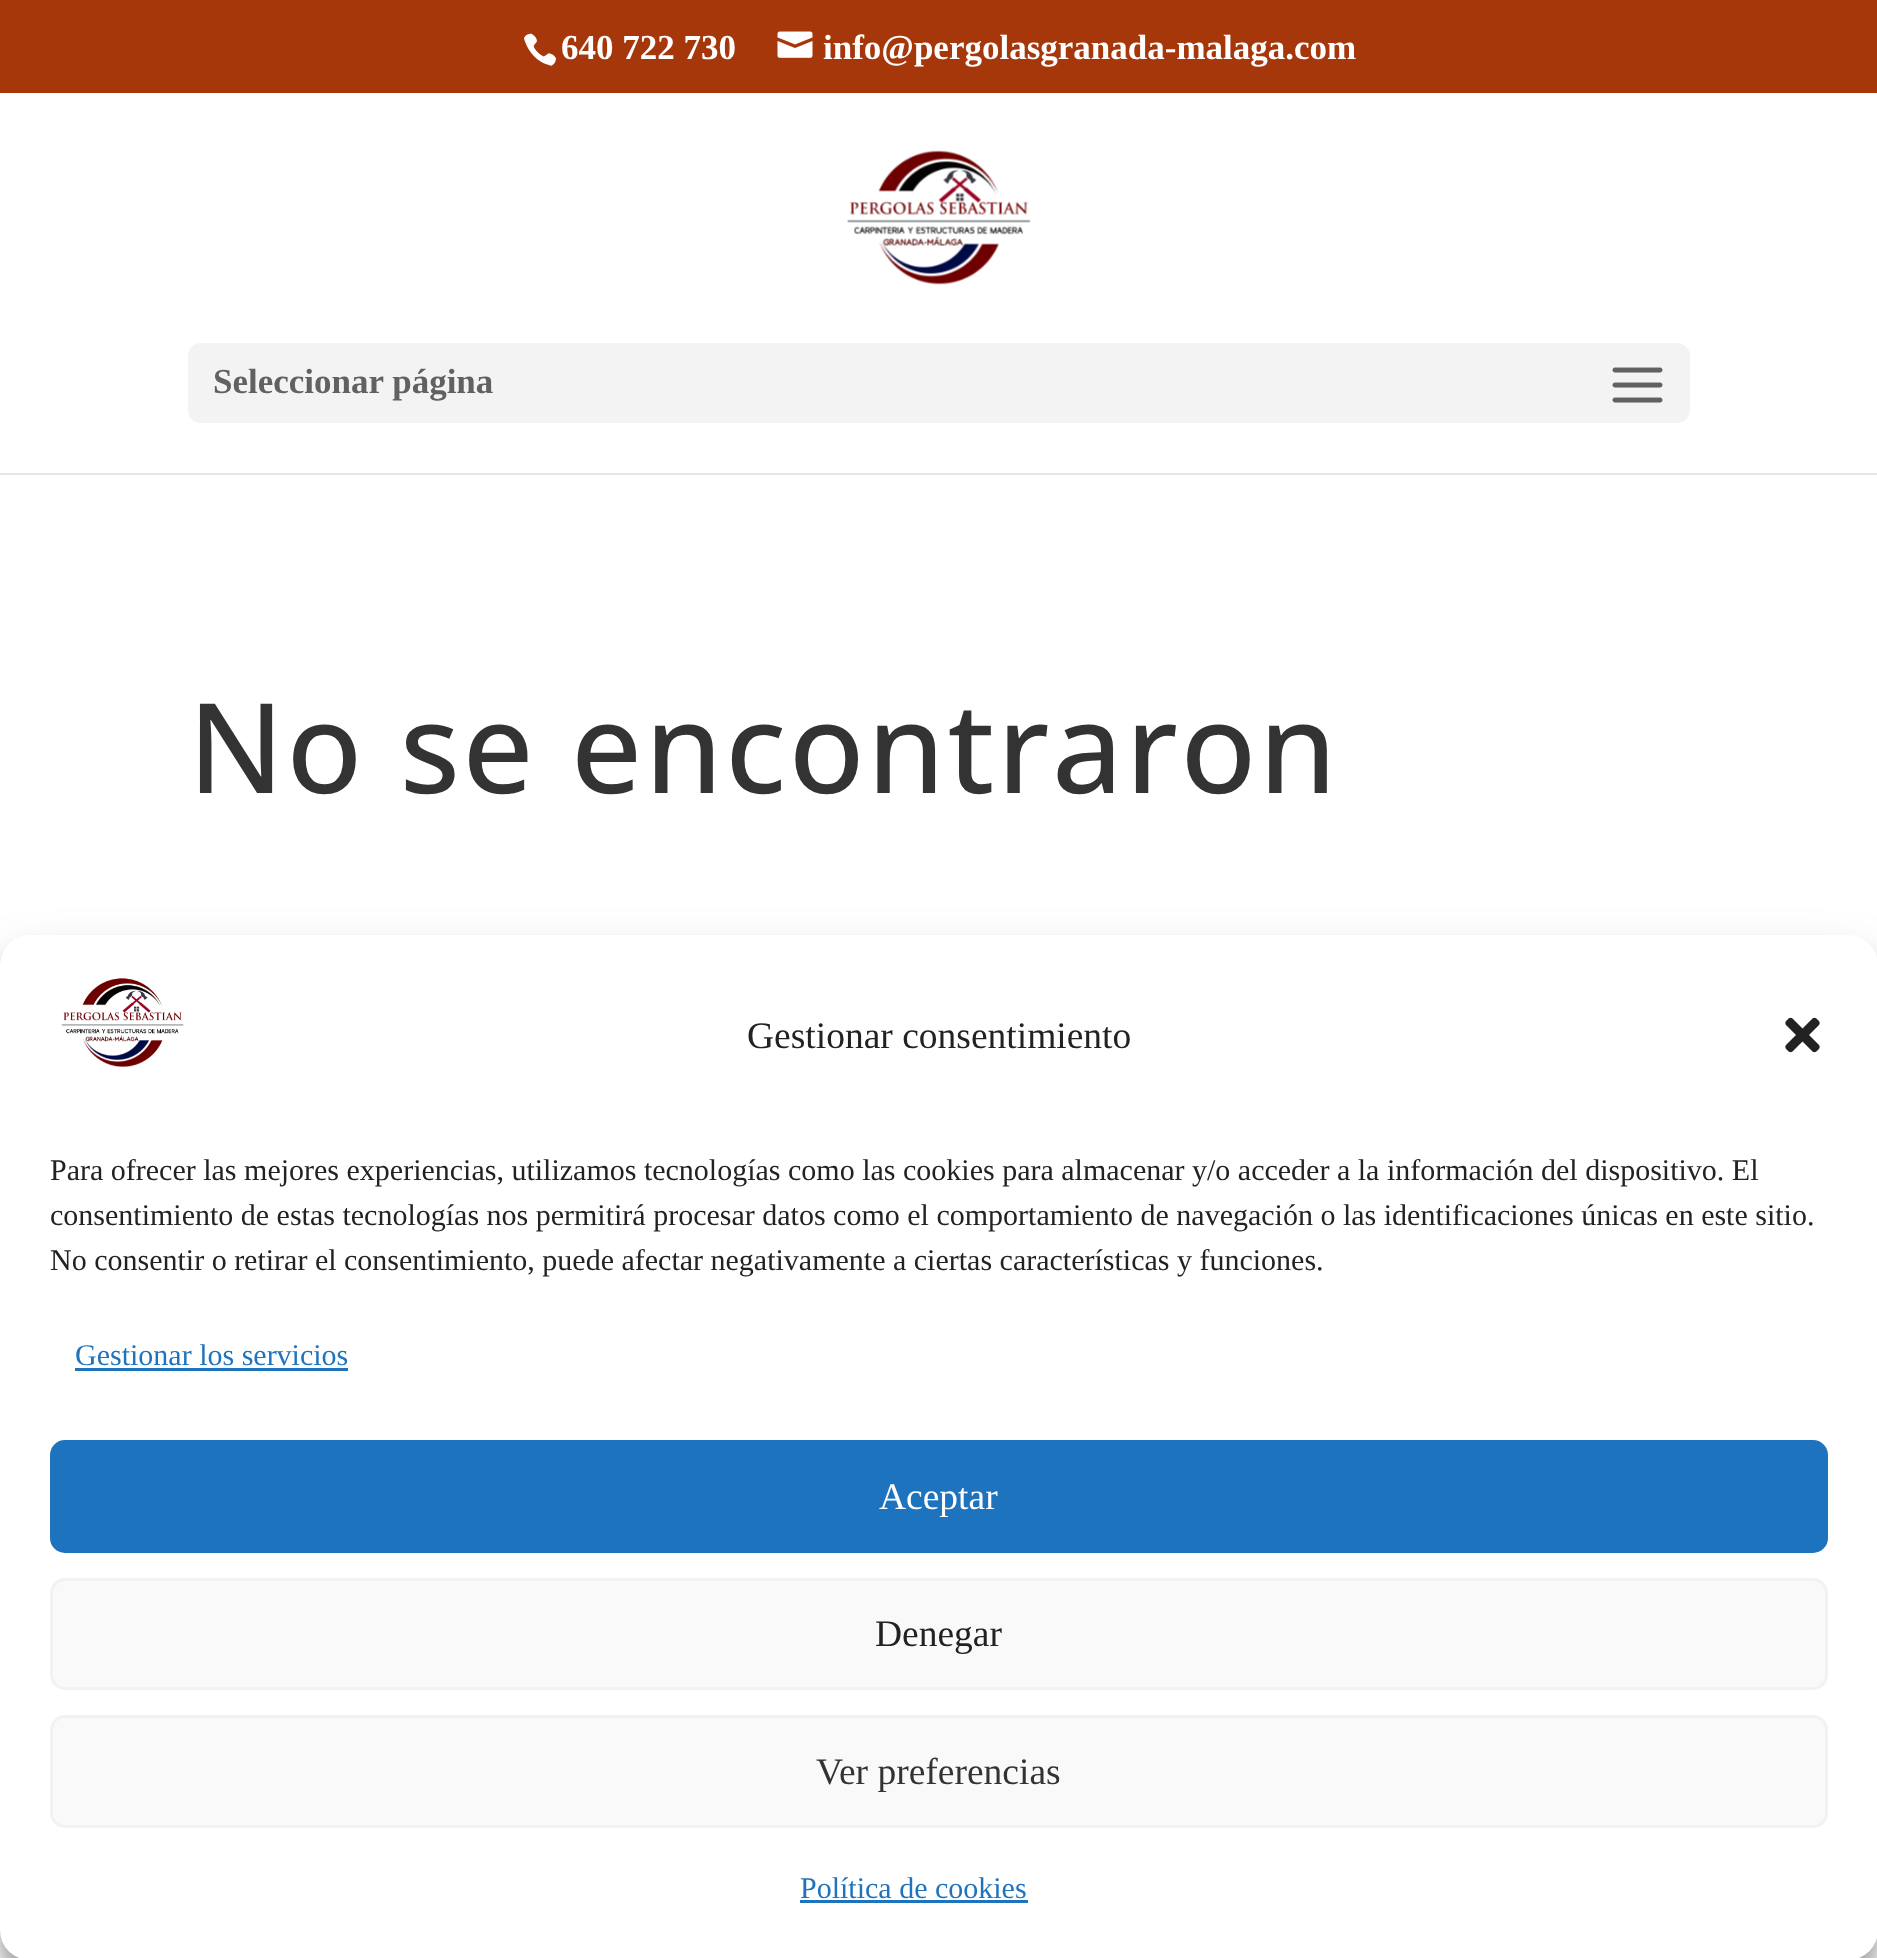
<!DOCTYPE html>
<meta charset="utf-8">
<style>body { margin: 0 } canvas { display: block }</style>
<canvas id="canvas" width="1877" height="1958"></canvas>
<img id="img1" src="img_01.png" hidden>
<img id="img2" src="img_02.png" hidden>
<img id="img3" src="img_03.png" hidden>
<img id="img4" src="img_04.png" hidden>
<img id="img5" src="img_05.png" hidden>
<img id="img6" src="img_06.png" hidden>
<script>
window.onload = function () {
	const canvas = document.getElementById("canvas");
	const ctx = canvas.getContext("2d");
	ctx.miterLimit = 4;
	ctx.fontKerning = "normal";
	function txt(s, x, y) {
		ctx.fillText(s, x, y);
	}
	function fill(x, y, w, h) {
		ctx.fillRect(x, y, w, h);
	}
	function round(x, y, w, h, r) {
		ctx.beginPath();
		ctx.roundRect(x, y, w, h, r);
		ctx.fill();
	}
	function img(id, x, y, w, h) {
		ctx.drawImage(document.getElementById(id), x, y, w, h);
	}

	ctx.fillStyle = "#FFFFFF";
	fill(0, 0, 1877, 1958);
	ctx.fillStyle = "#A5370B";
	fill(0, 0, 1877, 93);
	img("img1", 524, 33, 32, 33);
	img("img2", 777, 31, 36, 27);
	ctx.fillStyle = "#E6E6E6";
	ctx.beginPath();
	ctx.moveTo(0, 472);
	ctx.lineTo(0, 475);
	ctx.lineTo(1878, 475);
	ctx.lineTo(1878, 95);
	ctx.lineTo(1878, 472);
	ctx.closePath();
	ctx.fill();
	ctx.fillStyle = "#FFFFFF";
	fill(0, 472, 1877, 1);
	img("img3", 847, 150, 184, 135);
	ctx.fillStyle = "#F3F3F3";
	round(188, 343, 1502, 80, 13);
	img("img4", 1612, 367, 51, 36);
	ctx.fillStyle = "rgba(0, 0, 0, 0.23)";
	ctx.filter = "blur(7.5px)";
	ctx.beginPath();
	ctx.roundRect(0, 950, 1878, 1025, 30);
	ctx.fill();
	ctx.filter = "none";
	ctx.fillStyle = "rgba(0, 0, 0, 0.19)";
	ctx.filter = "blur(25px)";
	ctx.beginPath();
	ctx.roundRect(0, 960, 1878, 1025, 30);
	ctx.fill();
	ctx.filter = "none";
	ctx.fillStyle = "#FFFFFF";
	round(0, 935, 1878, 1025, 30);
	img("img5", 61, 978, 123, 89);
	img("img6", 1785, 1017, 35, 36);
	ctx.fillStyle = "#1E73BE";
	fill(75, 1368, 273, 3);
	ctx.beginPath();
	ctx.roundRect(51.5, 1441.5, 1775, 110, 13.5);
	ctx.fill();
	ctx.strokeStyle = "#1E73BE";
	ctx.lineWidth = 3;
	ctx.stroke();
	ctx.fillStyle = "#F9F9F9";
	ctx.beginPath();
	ctx.roundRect(51.5, 1579.5, 1775, 109, 13.5);
	ctx.fill();
	ctx.strokeStyle = "#F2F2F2";
	ctx.stroke();
	ctx.beginPath();
	ctx.roundRect(51.5, 1716.5, 1775, 110, 13.5);
	ctx.fill();
	ctx.stroke();
	ctx.fillStyle = "#1E73BE";
	fill(800, 1900, 228, 3);
	ctx.font = "bold 35px Liberation Serif";
	ctx.fillStyle = "#FFFFFF";
	txt("640 722 730", 561, 59);
	txt("info@pergolasgranada-malaga.com", 823, 59);
	ctx.fillStyle = "#616161";
	txt("Seleccionar página", 213, 393);
	ctx.letterSpacing = "2.5px";
	ctx.font = "500 125px Open Sans";
	ctx.fillStyle = "#333333";
	txt("No se encontraron", 188, 793);
	ctx.letterSpacing = "0px";
	ctx.font = "37.5px Liberation Serif";
	ctx.fillStyle = "#222222";
	txt("Gestionar consentimiento", 747, 1048);
	ctx.font = "30px Liberation Serif";
	txt("Para ofrecer las mejores experiencias, utilizamos tecnologías como las cookies para almacenar y/o acceder a la información del dispositivo. El", 50, 1180);
	txt("consentimiento de estas tecnologías nos permitirá procesar datos como el comportamiento de navegación o las identificaciones únicas en este sitio.", 50, 1225);
	txt("No consentir o retirar el consentimiento, puede afectar negativamente a ciertas características y funciones.", 50, 1270);
	ctx.fillStyle = "#1E73BE";
	txt("Gestionar los servicios", 75, 1365);
	ctx.font = "37.5px Liberation Serif";
	ctx.fillStyle = "#FFFFFF";
	txt("Aceptar", 879, 1509);
	ctx.fillStyle = "#222222";
	txt("Denegar", 875, 1646);
	ctx.fillStyle = "#333333";
	txt("Ver preferencias", 816, 1784);
	ctx.font = "30px Liberation Serif";
	ctx.fillStyle = "#1E73BE";
	txt("Política de cookies", 800, 1898);
};
</script>
